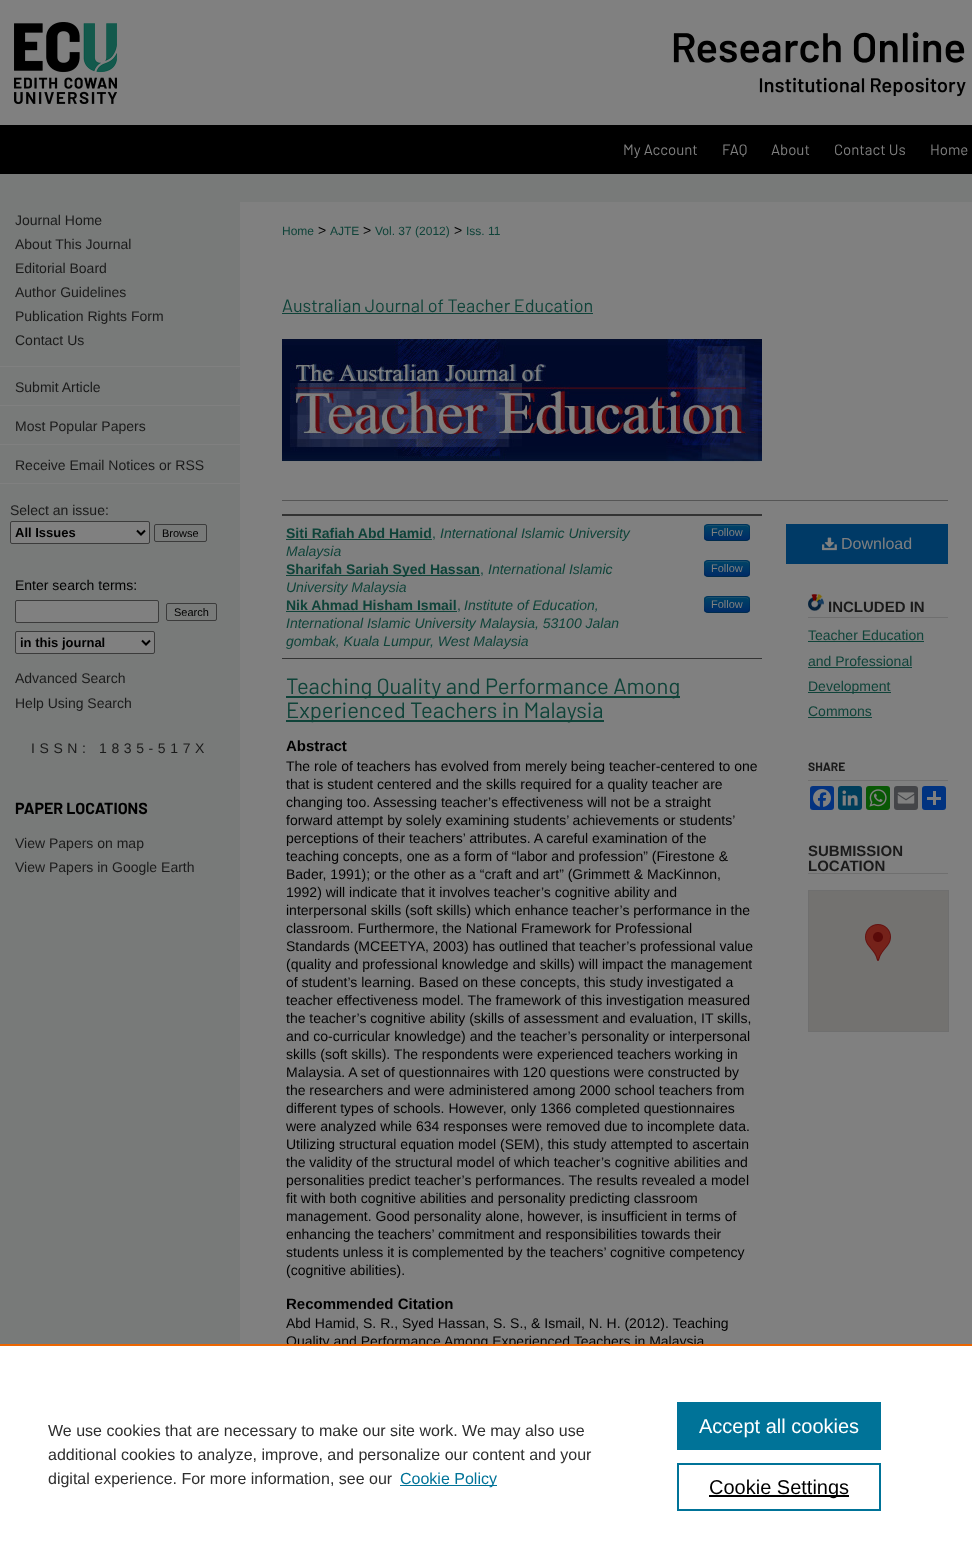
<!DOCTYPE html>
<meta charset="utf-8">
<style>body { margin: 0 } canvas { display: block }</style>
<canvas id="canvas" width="972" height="1564"></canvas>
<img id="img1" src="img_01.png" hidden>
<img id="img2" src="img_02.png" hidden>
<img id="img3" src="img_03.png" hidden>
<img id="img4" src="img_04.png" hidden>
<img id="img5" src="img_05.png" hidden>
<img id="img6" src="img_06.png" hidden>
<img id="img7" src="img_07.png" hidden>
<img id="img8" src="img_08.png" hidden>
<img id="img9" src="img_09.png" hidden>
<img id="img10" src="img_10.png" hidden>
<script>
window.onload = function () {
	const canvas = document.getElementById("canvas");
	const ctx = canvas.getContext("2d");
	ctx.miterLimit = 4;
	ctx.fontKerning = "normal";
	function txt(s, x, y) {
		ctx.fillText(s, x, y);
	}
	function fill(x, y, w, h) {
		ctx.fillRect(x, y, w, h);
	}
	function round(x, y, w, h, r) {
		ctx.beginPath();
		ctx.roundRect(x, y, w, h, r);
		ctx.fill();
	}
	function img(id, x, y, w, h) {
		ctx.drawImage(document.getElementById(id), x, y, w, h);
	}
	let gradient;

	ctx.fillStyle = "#787A79";
	fill(0, 0, 972, 1564);
	img("img1", 0, 0, 972, 174);
	img("img2", 14, 22, 952, 82);
	ctx.fillStyle = "#808080";
	fill(240, 202, 732, 1142);
	fill(0, 366, 240, 1);
	fill(0, 405, 240, 1);
	fill(0, 444, 240, 1);
	fill(0, 483, 240, 1);
	ctx.beginPath();
	ctx.roundRect(10.5, 521.5, 139, 22, 1.5);
	ctx.fill();
	ctx.strokeStyle = "#3B3B3B";
	ctx.stroke();
	ctx.beginPath();
	ctx.moveTo(137, 530.5);
	ctx.lineTo(141, 534.5);
	ctx.lineTo(145, 530.5);
	ctx.strokeStyle = "#000000";
	ctx.lineWidth = 2;
	ctx.stroke();
	ctx.beginPath();
	ctx.roundRect(154.5, 524.5, 52, 17, 1.5);
	ctx.strokeStyle = "#3B3B3B";
	ctx.lineWidth = 1;
	ctx.stroke();
	ctx.beginPath();
	ctx.roundRect(15.5, 600.5, 143, 22, 1.5);
	ctx.fill();
	ctx.stroke();
	ctx.beginPath();
	ctx.roundRect(166.5, 603.5, 50, 17, 1.5);
	ctx.stroke();
	ctx.beginPath();
	ctx.roundRect(15.5, 631.5, 139, 22, 1.5);
	ctx.fill();
	ctx.stroke();
	ctx.beginPath();
	ctx.moveTo(142, 640.5);
	ctx.lineTo(146, 644.5);
	ctx.lineTo(150, 640.5);
	ctx.strokeStyle = "#000000";
	ctx.lineWidth = 2;
	ctx.stroke();
	ctx.fillStyle = "#0F4339";
	fill(282, 313, 311, 1);
	img("img3", 282, 339, 480, 123);
	ctx.fillStyle = "#555555";
	fill(282, 500, 666, 1);
	ctx.fillStyle = "#333333";
	fill(282, 514, 480, 2);
	fill(282, 658, 480, 1);
	ctx.fillStyle = "#0F4339";
	fill(286, 539, 146, 1);
	ctx.fillStyle = "#003A66";
	round(704, 524, 46, 17, 4);
	ctx.save();
	ctx.beginPath();
	ctx.roundRect(704, 524, 46, 17, 4);
	ctx.clip();
	gradient = ctx.createLinearGradient(727, 525, 727, 540);
	gradient.addColorStop(0, "#004466");
	gradient.addColorStop(1, "#002B66");
	ctx.fillStyle = gradient;
	fill(704, 525, 46, 15);
	ctx.restore();
	ctx.fillStyle = "rgba(128, 128, 128, 0.2)";
	ctx.beginPath();
	ctx.moveTo(708, 526);
	ctx.lineTo(741, 526);
	ctx.bezierCurveTo(748, 526, 749, 526, 749, 532);
	ctx.lineTo(749, 538);
	ctx.lineTo(749, 531);
	ctx.bezierCurveTo(749, 524, 747, 525, 740, 525);
	ctx.lineTo(714, 525);
	ctx.bezierCurveTo(707, 525, 705, 524, 705, 531);
	ctx.lineTo(705, 539);
	ctx.bezierCurveTo(705, 536, 703, 526, 708, 526);
	ctx.closePath();
	ctx.fill();
	ctx.beginPath();
	ctx.moveTo(748.5, 539.5);
	ctx.bezierCurveTo(748, 540, 747, 540.5, 746, 540.5);
	ctx.lineTo(708, 540.5);
	ctx.bezierCurveTo(707, 540.5, 706, 540, 705.5, 539.5);
	ctx.strokeStyle = "rgba(0, 0, 0, 0.25)";
	ctx.lineWidth = 1;
	ctx.stroke();
	ctx.beginPath();
	ctx.moveTo(705.5, 539.5);
	ctx.bezierCurveTo(704, 537.5, 704.5, 534.5, 704.5, 532.5);
	ctx.bezierCurveTo(704.5, 523.5, 705, 524.5, 714.5, 524.5);
	ctx.lineTo(739.5, 524.5);
	ctx.bezierCurveTo(749, 524.5, 749.5, 523.5, 749.5, 532.5);
	ctx.bezierCurveTo(749.5, 534.5, 750, 537.5, 748.5, 539.5);
	ctx.strokeStyle = "rgba(0, 0, 0, 0.1)";
	ctx.stroke();
	ctx.fillStyle = "#0F4339";
	fill(286, 575, 194, 1);
	ctx.fillStyle = "#003A66";
	round(704, 560, 46, 17, 4);
	ctx.save();
	ctx.beginPath();
	ctx.roundRect(704, 560, 46, 17, 4);
	ctx.clip();
	gradient = ctx.createLinearGradient(727, 561, 727, 576);
	gradient.addColorStop(0, "#004466");
	gradient.addColorStop(1, "#002B66");
	ctx.fillStyle = gradient;
	fill(704, 561, 46, 15);
	ctx.restore();
	ctx.fillStyle = "rgba(128, 128, 128, 0.2)";
	ctx.beginPath();
	ctx.moveTo(708, 562);
	ctx.lineTo(741, 562);
	ctx.bezierCurveTo(748, 562, 749, 562, 749, 568);
	ctx.lineTo(749, 574);
	ctx.lineTo(749, 567);
	ctx.bezierCurveTo(749, 560, 747, 561, 740, 561);
	ctx.lineTo(714, 561);
	ctx.bezierCurveTo(707, 561, 705, 560, 705, 567);
	ctx.lineTo(705, 575);
	ctx.bezierCurveTo(705, 572, 703, 562, 708, 562);
	ctx.closePath();
	ctx.fill();
	ctx.beginPath();
	ctx.moveTo(748.5, 575.5);
	ctx.bezierCurveTo(748, 576, 747, 576.5, 746, 576.5);
	ctx.lineTo(708, 576.5);
	ctx.bezierCurveTo(707, 576.5, 706, 576, 705.5, 575.5);
	ctx.strokeStyle = "rgba(0, 0, 0, 0.25)";
	ctx.stroke();
	ctx.beginPath();
	ctx.moveTo(705.5, 575.5);
	ctx.bezierCurveTo(704, 573.5, 704.5, 570.5, 704.5, 568.5);
	ctx.bezierCurveTo(704.5, 559.5, 705, 560.5, 714.5, 560.5);
	ctx.lineTo(739.5, 560.5);
	ctx.bezierCurveTo(749, 560.5, 749.5, 559.5, 749.5, 568.5);
	ctx.bezierCurveTo(749.5, 570.5, 750, 573.5, 748.5, 575.5);
	ctx.strokeStyle = "rgba(0, 0, 0, 0.1)";
	ctx.stroke();
	ctx.fillStyle = "#0F4339";
	fill(286, 611, 171, 1);
	ctx.fillStyle = "#003A66";
	round(704, 596, 46, 17, 4);
	ctx.save();
	ctx.beginPath();
	ctx.roundRect(704, 596, 46, 17, 4);
	ctx.clip();
	gradient = ctx.createLinearGradient(727, 597, 727, 612);
	gradient.addColorStop(0, "#004466");
	gradient.addColorStop(1, "#002B66");
	ctx.fillStyle = gradient;
	fill(704, 597, 46, 15);
	ctx.restore();
	ctx.fillStyle = "rgba(128, 128, 128, 0.2)";
	ctx.beginPath();
	ctx.moveTo(708, 598);
	ctx.lineTo(741, 598);
	ctx.bezierCurveTo(748, 598, 749, 598, 749, 604);
	ctx.lineTo(749, 610);
	ctx.lineTo(749, 603);
	ctx.bezierCurveTo(749, 596, 747, 597, 740, 597);
	ctx.lineTo(714, 597);
	ctx.bezierCurveTo(707, 597, 705, 596, 705, 603);
	ctx.lineTo(705, 611);
	ctx.bezierCurveTo(705, 608, 703, 598, 708, 598);
	ctx.closePath();
	ctx.fill();
	ctx.beginPath();
	ctx.moveTo(748.5, 611.5);
	ctx.bezierCurveTo(748, 612, 747, 612.5, 746, 612.5);
	ctx.lineTo(708, 612.5);
	ctx.bezierCurveTo(707, 612.5, 706, 612, 705.5, 611.5);
	ctx.strokeStyle = "rgba(0, 0, 0, 0.25)";
	ctx.stroke();
	ctx.beginPath();
	ctx.moveTo(705.5, 611.5);
	ctx.bezierCurveTo(704, 609.5, 704.5, 606.5, 704.5, 604.5);
	ctx.bezierCurveTo(704.5, 595.5, 705, 596.5, 714.5, 596.5);
	ctx.lineTo(739.5, 596.5);
	ctx.bezierCurveTo(749, 596.5, 749.5, 595.5, 749.5, 604.5);
	ctx.bezierCurveTo(749.5, 606.5, 750, 609.5, 748.5, 611.5);
	ctx.strokeStyle = "rgba(0, 0, 0, 0.1)";
	ctx.stroke();
	ctx.fillStyle = "#0F4339";
	fill(286, 696, 394, 2);
	fill(286, 720, 318, 2);
	ctx.fillStyle = "#003A66";
	fill(786, 524, 162, 40);
	img("img4", 822, 537, 15, 14);
	img("img5", 808, 594, 16, 17);
	ctx.fillStyle = "#6F6F6F";
	fill(808, 617, 140, 1);
	ctx.fillStyle = "#0F4339";
	fill(808, 641, 116, 1);
	fill(808, 667, 104, 1);
	fill(808, 692, 83, 1);
	fill(808, 717, 64, 1);
	ctx.fillStyle = "#6F6F6F";
	fill(808, 780, 140, 1);
	ctx.fillStyle = "#043380";
	round(810, 786, 24, 24, 3);
	img("img6", 813, 789, 18, 18);
	ctx.fillStyle = "#003E5B";
	round(838, 786, 24, 24, 3);
	img("img7", 842, 790, 16, 16);
	ctx.fillStyle = "#095805";
	round(866, 786, 24, 24, 3);
	img("img8", 869, 789, 18, 18);
	ctx.fillStyle = "#444548";
	round(894, 786, 24, 24, 3);
	img("img9", 897, 792, 18, 12);
	ctx.fillStyle = "#013380";
	round(922, 786, 24, 24, 3);
	ctx.fillStyle = "#808080";
	fill(933, 791, 3, 14);
	fill(927, 797, 14, 3);
	ctx.fillStyle = "#6F6F6F";
	fill(808, 873, 140, 1);
	ctx.strokeStyle = "#6F6F6F";
	ctx.strokeRect(808.5, 890.5, 140, 141);
	ctx.fillStyle = "#737270";
	fill(809, 891, 139, 140);
	img("img10", 865, 924, 26, 37);
	ctx.font = "15px Barlow";
	ctx.fillStyle = "#808080";
	txt("My Account", 623, 155);
	txt("FAQ", 722, 155);
	txt("About", 771, 155);
	txt("Contact Us", 834, 155);
	txt("Home", 930, 155);
	ctx.font = "14px Liberation Sans";
	ctx.fillStyle = "#1A1A1A";
	txt("Journal Home", 15, 225);
	txt("About This Journal", 15, 249);
	txt("Editorial Board", 15, 273);
	txt("Author Guidelines", 15, 297);
	txt("Publication Rights Form", 15, 321);
	txt("Contact Us", 15, 345);
	txt("Submit Article", 15, 392);
	txt("Most Popular Papers", 15, 431);
	txt("Receive Email Notices or RSS", 15, 470);
	txt("Select an issue:", 10, 515);
	ctx.font = "bold 13px Liberation Sans";
	ctx.fillStyle = "#000000";
	txt("All Issues", 15, 537);
	ctx.font = "11px Liberation Sans";
	txt("Browse", 162, 537);
	ctx.font = "14px Liberation Sans";
	txt("Enter search terms:", 15, 590);
	ctx.font = "11px Liberation Sans";
	txt("Search", 174, 616);
	ctx.font = "bold 13px Liberation Sans";
	txt("in this journal", 20, 647);
	ctx.font = "14px Liberation Sans";
	ctx.fillStyle = "#1A1A1A";
	txt("Advanced Search", 15, 683);
	txt("Help Using Search", 15, 708);
	ctx.letterSpacing = "4.6px";
	txt("ISSN: 1835-517X", 31, 753);
	ctx.letterSpacing = "0px";
	ctx.font = "bold 16px Barlow";
	ctx.fillStyle = "#000000";
	txt("PAPER LOCATIONS", 15, 814);
	ctx.font = "14px Liberation Sans";
	ctx.fillStyle = "#1A1A1A";
	txt("View Papers on map", 15, 848);
	txt("View Papers in Google Earth", 15, 872);
	ctx.font = "12px Liberation Sans";
	ctx.fillStyle = "#0F4339";
	txt("Home", 282, 235);
	ctx.font = "14px Liberation Sans";
	ctx.fillStyle = "#000000";
	txt(">", 318, 235);
	ctx.font = "12px Liberation Sans";
	ctx.fillStyle = "#0F4339";
	txt("AJTE", 330, 235);
	ctx.font = "14px Liberation Sans";
	ctx.fillStyle = "#000000";
	txt(">", 363, 235);
	ctx.font = "12px Liberation Sans";
	ctx.fillStyle = "#0F4339";
	txt("Vol. 37 (2012)", 375, 235);
	ctx.font = "14px Liberation Sans";
	ctx.fillStyle = "#000000";
	txt(">", 454, 235);
	ctx.font = "12px Liberation Sans";
	ctx.fillStyle = "#0F4339";
	txt("Iss. 11", 466, 235);
	ctx.font = "18px Barlow";
	txt("Australian Journal of Teacher Education", 282, 312);
	ctx.font = "bold 14px Liberation Sans";
	txt("Siti Rafiah Abd Hamid", 286, 538);
	ctx.font = "14px Liberation Sans";
	txt(",", 432, 538);
	ctx.font = "italic 14px Liberation Sans";
	txt("International Islamic University", 440, 538);
	txt("Malaysia", 286, 556);
	ctx.font = "11px Liberation Sans";
	ctx.fillStyle = "#808080";
	txt("Follow", 711, 536);
	ctx.font = "bold 14px Liberation Sans";
	ctx.fillStyle = "#0F4339";
	txt("Sharifah Sariah Syed Hassan", 286, 574);
	ctx.font = "14px Liberation Sans";
	txt(",", 480, 574);
	ctx.font = "italic 14px Liberation Sans";
	txt("International Islamic", 488, 574);
	txt("University Malaysia", 286, 592);
	ctx.font = "11px Liberation Sans";
	ctx.fillStyle = "#808080";
	txt("Follow", 711, 572);
	ctx.font = "bold 14px Liberation Sans";
	ctx.fillStyle = "#0F4339";
	txt("Nik Ahmad Hisham Ismail", 286, 610);
	ctx.font = "14px Liberation Sans";
	txt(",", 457, 610);
	ctx.font = "italic 14px Liberation Sans";
	txt("Institute of Education,", 464, 610);
	txt("International Islamic University Malaysia, 53100 Jalan", 286, 628);
	txt("gombak, Kuala Lumpur, West Malaysia", 286, 646);
	ctx.font = "11px Liberation Sans";
	ctx.fillStyle = "#808080";
	txt("Follow", 711, 608);
	ctx.font = "22px Barlow";
	ctx.fillStyle = "#0F4339";
	txt("Teaching Quality and Performance Among", 286, 694);
	txt("Experienced Teachers in Malaysia", 286, 718);
	ctx.font = "bold 15px Liberation Sans";
	ctx.fillStyle = "#000000";
	txt("Abstract", 286, 751);
	ctx.font = "14px Liberation Sans";
	txt("The role of teachers has evolved from merely being teacher-centered to one", 286, 771);
	txt("that is student centered and the skills required for a quality teacher are", 286, 789);
	txt("changing too. Assessing teacher’s effectiveness will not be a straight", 286, 807);
	txt("forward attempt by solely examining students’ achievements or students’", 286, 825);
	txt("perceptions of their teachers’ attributes. A careful examination of the", 286, 843);
	txt("teaching concepts, one as a form of “labor and profession” (Firestone &", 286, 861);
	txt("Bader, 1991); or the other as a “craft and art” (Grimmett & MacKinnon,", 286, 879);
	txt("1992) will indicate that it involves teacher’s cognitive ability and", 286, 897);
	txt("interpersonal skills (soft skills) which enhance teacher’s performance in the", 286, 915);
	txt("classroom. Furthermore, the National Framework for Professional", 286, 933);
	txt("Standards (MCEETYA, 2003) has outlined that teacher’s professional value", 286, 951);
	txt("(quality and professional knowledge and skills) will impact the management", 286, 969);
	txt("of student’s learning. Based on these concepts, this study investigated a", 286, 987);
	txt("teacher effectiveness model. The framework of this investigation measured", 286, 1005);
	txt("the teacher’s cognitive ability (skills of assessment and evaluation, IT skills,", 286, 1023);
	txt("and co-curricular knowledge) and the teacher’s personality or interpersonal", 286, 1041);
	txt("skills (soft skills). The respondents were experienced teachers working in", 286, 1059);
	txt("Malaysia. A set of questionnaires with 120 questions were constructed by", 286, 1077);
	txt("the researchers and were administered among 2000 school teachers from", 286, 1095);
	txt("different types of schools. However, only 1366 completed questionnaires", 286, 1113);
	txt("were analyzed while 634 responses were removed due to incomplete data.", 286, 1131);
	txt("Utilizing structural equation model (SEM), this study attempted to ascertain", 286, 1149);
	txt("the validity of the structural model of which teacher’s cognitive abilities and", 286, 1167);
	txt("personalities predict teacher’s performances. The results revealed a model", 286, 1185);
	txt("fit with both cognitive abilities and personality predicting classroom", 286, 1203);
	txt("management. Good personality alone, however, is insufficient in terms of", 286, 1221);
	txt("enhancing the teachers’ commitment and responsibilities towards their", 286, 1239);
	txt("students unless it is complemented by the teachers’ cognitive competency", 286, 1257);
	txt("(cognitive abilities).", 286, 1275);
	ctx.font = "bold 15px Liberation Sans";
	txt("Recommended Citation", 286, 1309);
	ctx.font = "14px Liberation Sans";
	txt("Abd Hamid, S. R., Syed Hassan, S. S., & Ismail, N. H. (2012). Teaching", 286, 1328);
	txt("Quality and Performance Among Experienced Teachers in Malaysia", 286, 1346);
	ctx.font = "16px Liberation Sans";
	ctx.fillStyle = "#808080";
	txt("Download", 841, 549);
	ctx.font = "bold 15px Liberation Sans";
	ctx.fillStyle = "#1A1A1A";
	txt("INCLUDED IN", 828, 612);
	ctx.font = "14px Liberation Sans";
	ctx.fillStyle = "#0F4339";
	txt("Teacher Education", 808, 640);
	txt("and Professional", 808, 666);
	txt("Development", 808, 691);
	txt("Commons", 808, 716);
	ctx.font = "bold 12px Barlow";
	ctx.fillStyle = "#1A1A1A";
	txt("SHARE", 808, 771);
	ctx.font = "bold 15px Liberation Sans";
	txt("SUBMISSION", 808, 856);
	txt("LOCATION", 808, 871);
	ctx.fillStyle = "#FFFFFF";
	fill(0, 1346, 972, 218);
	ctx.fillStyle = "#EB6500";
	fill(0, 1344, 972, 2);
	ctx.font = "16px Liberation Sans";
	ctx.fillStyle = "#2E2E2E";
	txt("We use cookies that are necessary to make our site work. We may also use", 48, 1436);
	txt("additional cookies to analyze, improve, and personalize our content and your", 48, 1460);
	txt("digital experience. For more information, see our", 48, 1484);
	ctx.fillStyle = "#007398";
	fill(400, 1485, 97, 1);
	txt("Cookie Policy", 400, 1484);
	fill(677, 1402, 204, 48);
	ctx.font = "20px Liberation Sans";
	ctx.fillStyle = "#FFFFFF";
	txt("Accept all cookies", 699, 1433);
	ctx.strokeStyle = "#007398";
	ctx.lineWidth = 2;
	ctx.strokeRect(678, 1464, 202, 46);
	ctx.fillStyle = "#000000";
	fill(709, 1495, 140, 2);
	txt("Cookie Settings", 709, 1494);
};
</script>
